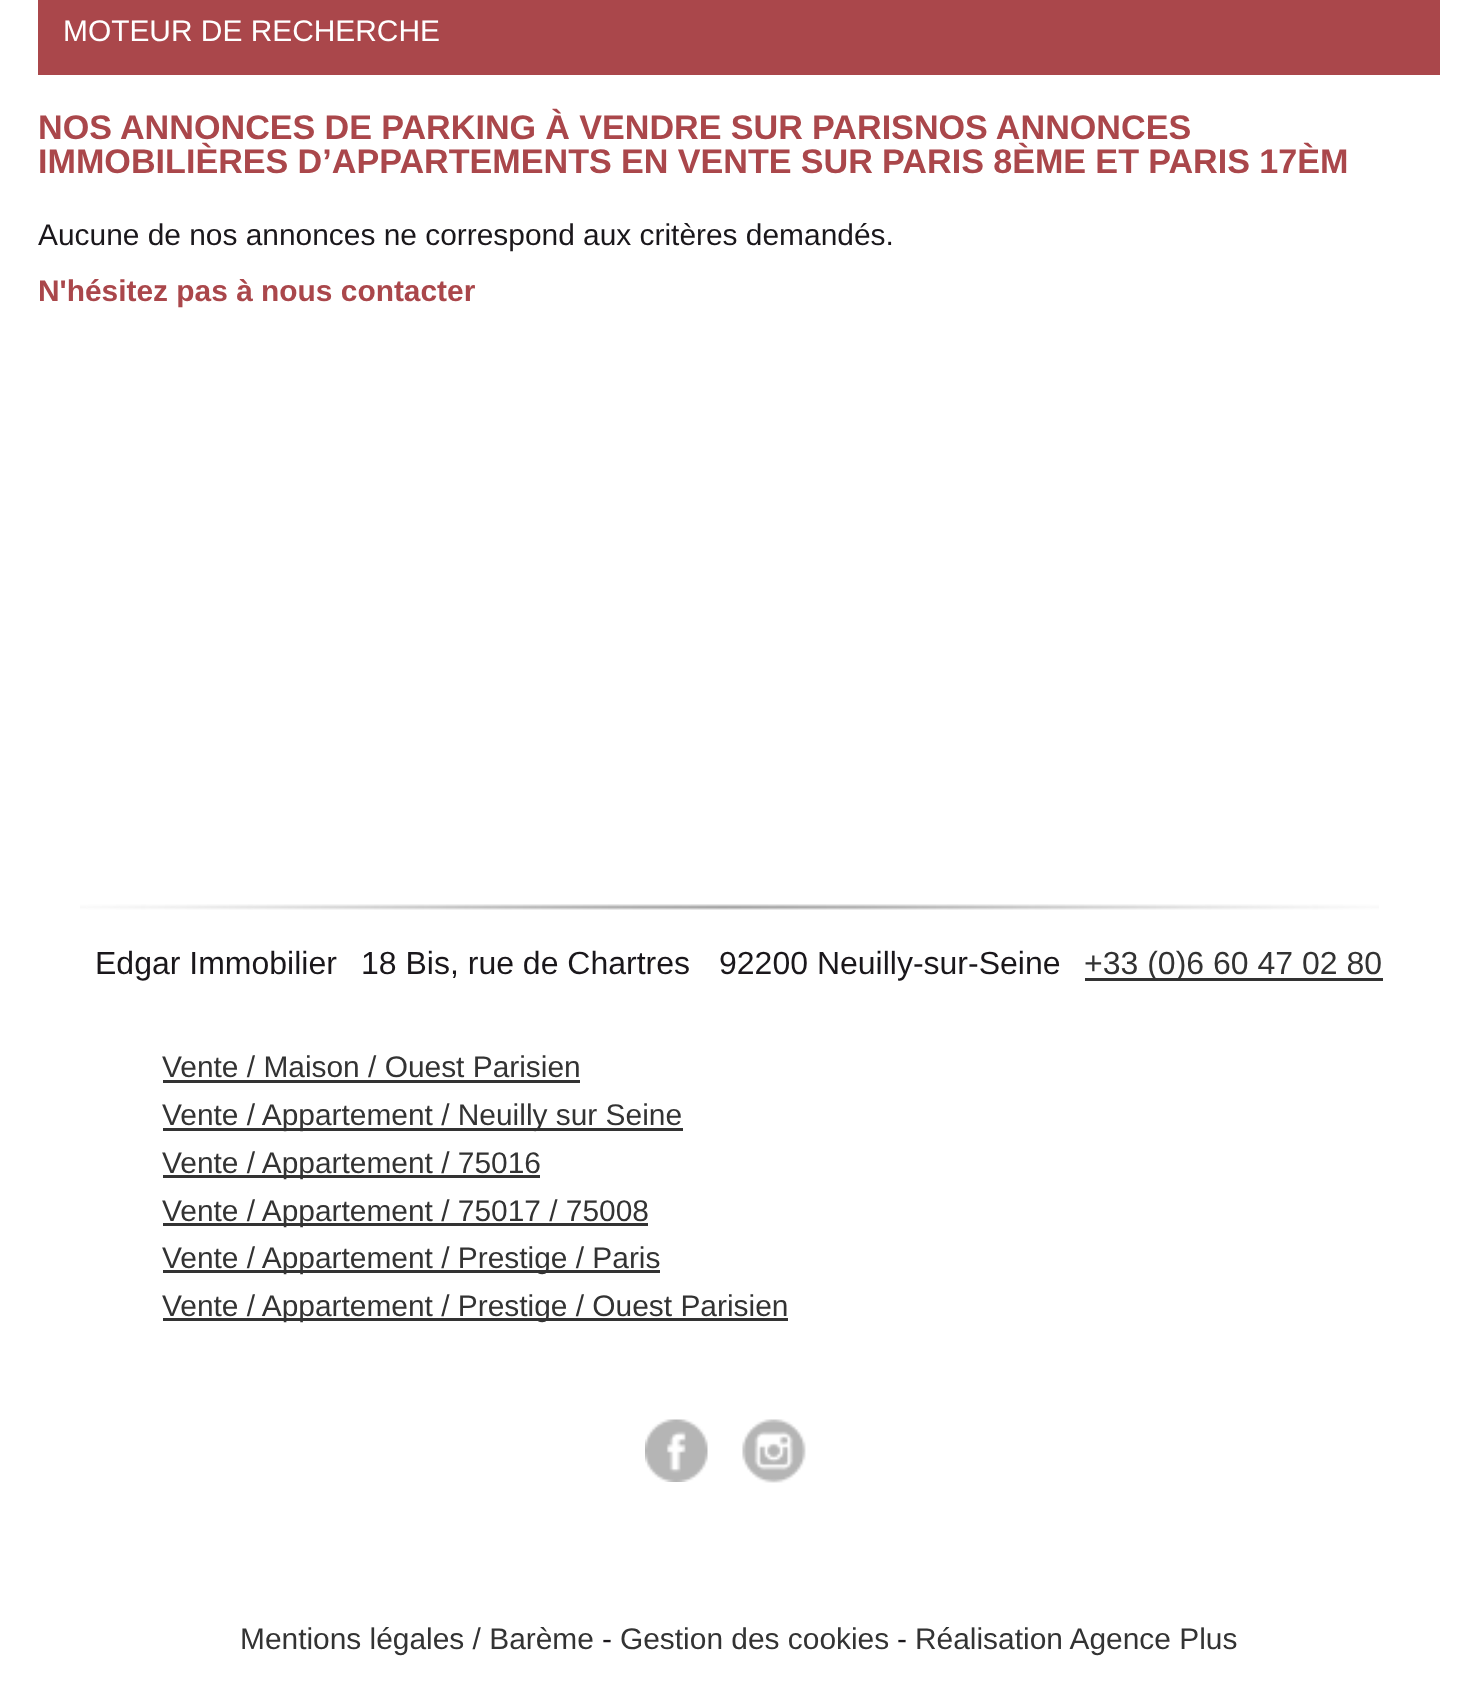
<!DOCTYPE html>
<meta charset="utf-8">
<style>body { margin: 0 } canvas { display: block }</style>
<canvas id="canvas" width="1476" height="1686"></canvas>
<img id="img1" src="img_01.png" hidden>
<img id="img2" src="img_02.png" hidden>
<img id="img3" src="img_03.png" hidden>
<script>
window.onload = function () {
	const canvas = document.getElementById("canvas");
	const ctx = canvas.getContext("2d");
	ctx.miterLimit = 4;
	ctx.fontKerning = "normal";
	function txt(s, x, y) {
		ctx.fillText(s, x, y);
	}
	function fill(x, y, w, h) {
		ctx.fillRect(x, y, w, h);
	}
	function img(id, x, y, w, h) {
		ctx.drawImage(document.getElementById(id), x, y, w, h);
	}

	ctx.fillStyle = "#FFFFFF";
	fill(0, 0, 1476, 1686);
	ctx.fillStyle = "#AA474B";
	fill(38, 0, 1402, 75);
	img("img1", 80, 904, 1299, 6);
	ctx.fillStyle = "#333333";
	fill(1085, 978, 298, 3);
	fill(163, 1080, 417, 3);
	fill(163, 1128, 520, 3);
	fill(163, 1175, 377, 3);
	fill(163, 1223, 485, 3);
	fill(163, 1270, 497, 3);
	fill(163, 1318, 625, 3);
	img("img2", 645, 1419, 63, 63);
	img("img3", 742, 1419, 64, 64);
	ctx.font = "29.9px Liberation Sans";
	ctx.fillStyle = "#FFFFFF";
	txt("MOTEUR DE RECHERCHE", 63, 41);
	ctx.wordSpacing = "-0.25px";
	ctx.font = "bold 34.15px Liberation Sans";
	ctx.fillStyle = "#AA474B";
	txt("NOS ANNONCES DE PARKING À VENDRE SUR PARISNOS ANNONCES", 38, 139);
	txt("IMMOBILIÈRES D’APPARTEMENTS EN VENTE SUR PARIS 8ÈME ET PARIS 17ÈM", 38, 173);
	ctx.wordSpacing = "0px";
	ctx.font = "29.9px Liberation Sans";
	ctx.fillStyle = "#1A171B";
	txt("Aucune de nos annonces ne correspond aux critères demandés.", 38, 245);
	ctx.font = "bold 29.9px Liberation Sans";
	ctx.fillStyle = "#AA474B";
	txt("N'hésitez pas à nous contacter", 38, 301);
	ctx.font = "32px Liberation Sans";
	ctx.fillStyle = "#1A171B";
	txt("Edgar Immobilier", 95, 974);
	txt("18 Bis, rue de Chartres", 361, 974);
	txt("92200 Neuilly-sur-Seine", 719, 974);
	ctx.fillStyle = "#333333";
	txt("+33 (0)6 60 47 02 80", 1084, 974);
	ctx.font = "29.9px Liberation Sans";
	txt("Vente / Maison / Ouest Parisien", 162, 1077);
	txt("Vente / Appartement / Neuilly sur Seine", 162, 1125);
	txt("Vente / Appartement / 75016", 162, 1173);
	txt("Vente / Appartement / 75017 / 75008", 162, 1221);
	txt("Vente / Appartement / Prestige / Paris", 162, 1268);
	txt("Vente / Appartement / Prestige / Ouest Parisien", 162, 1316);
	txt("Mentions légales / Barème", 240, 1649);
	ctx.fillStyle = "#1A171B";
	txt("-", 602, 1649);
	ctx.fillStyle = "#333333";
	txt("Gestion des cookies", 620, 1649);
	ctx.fillStyle = "#1A171B";
	txt("-", 897, 1649);
	ctx.fillStyle = "#333333";
	txt("Réalisation Agence Plus", 915, 1649);
};
</script>
